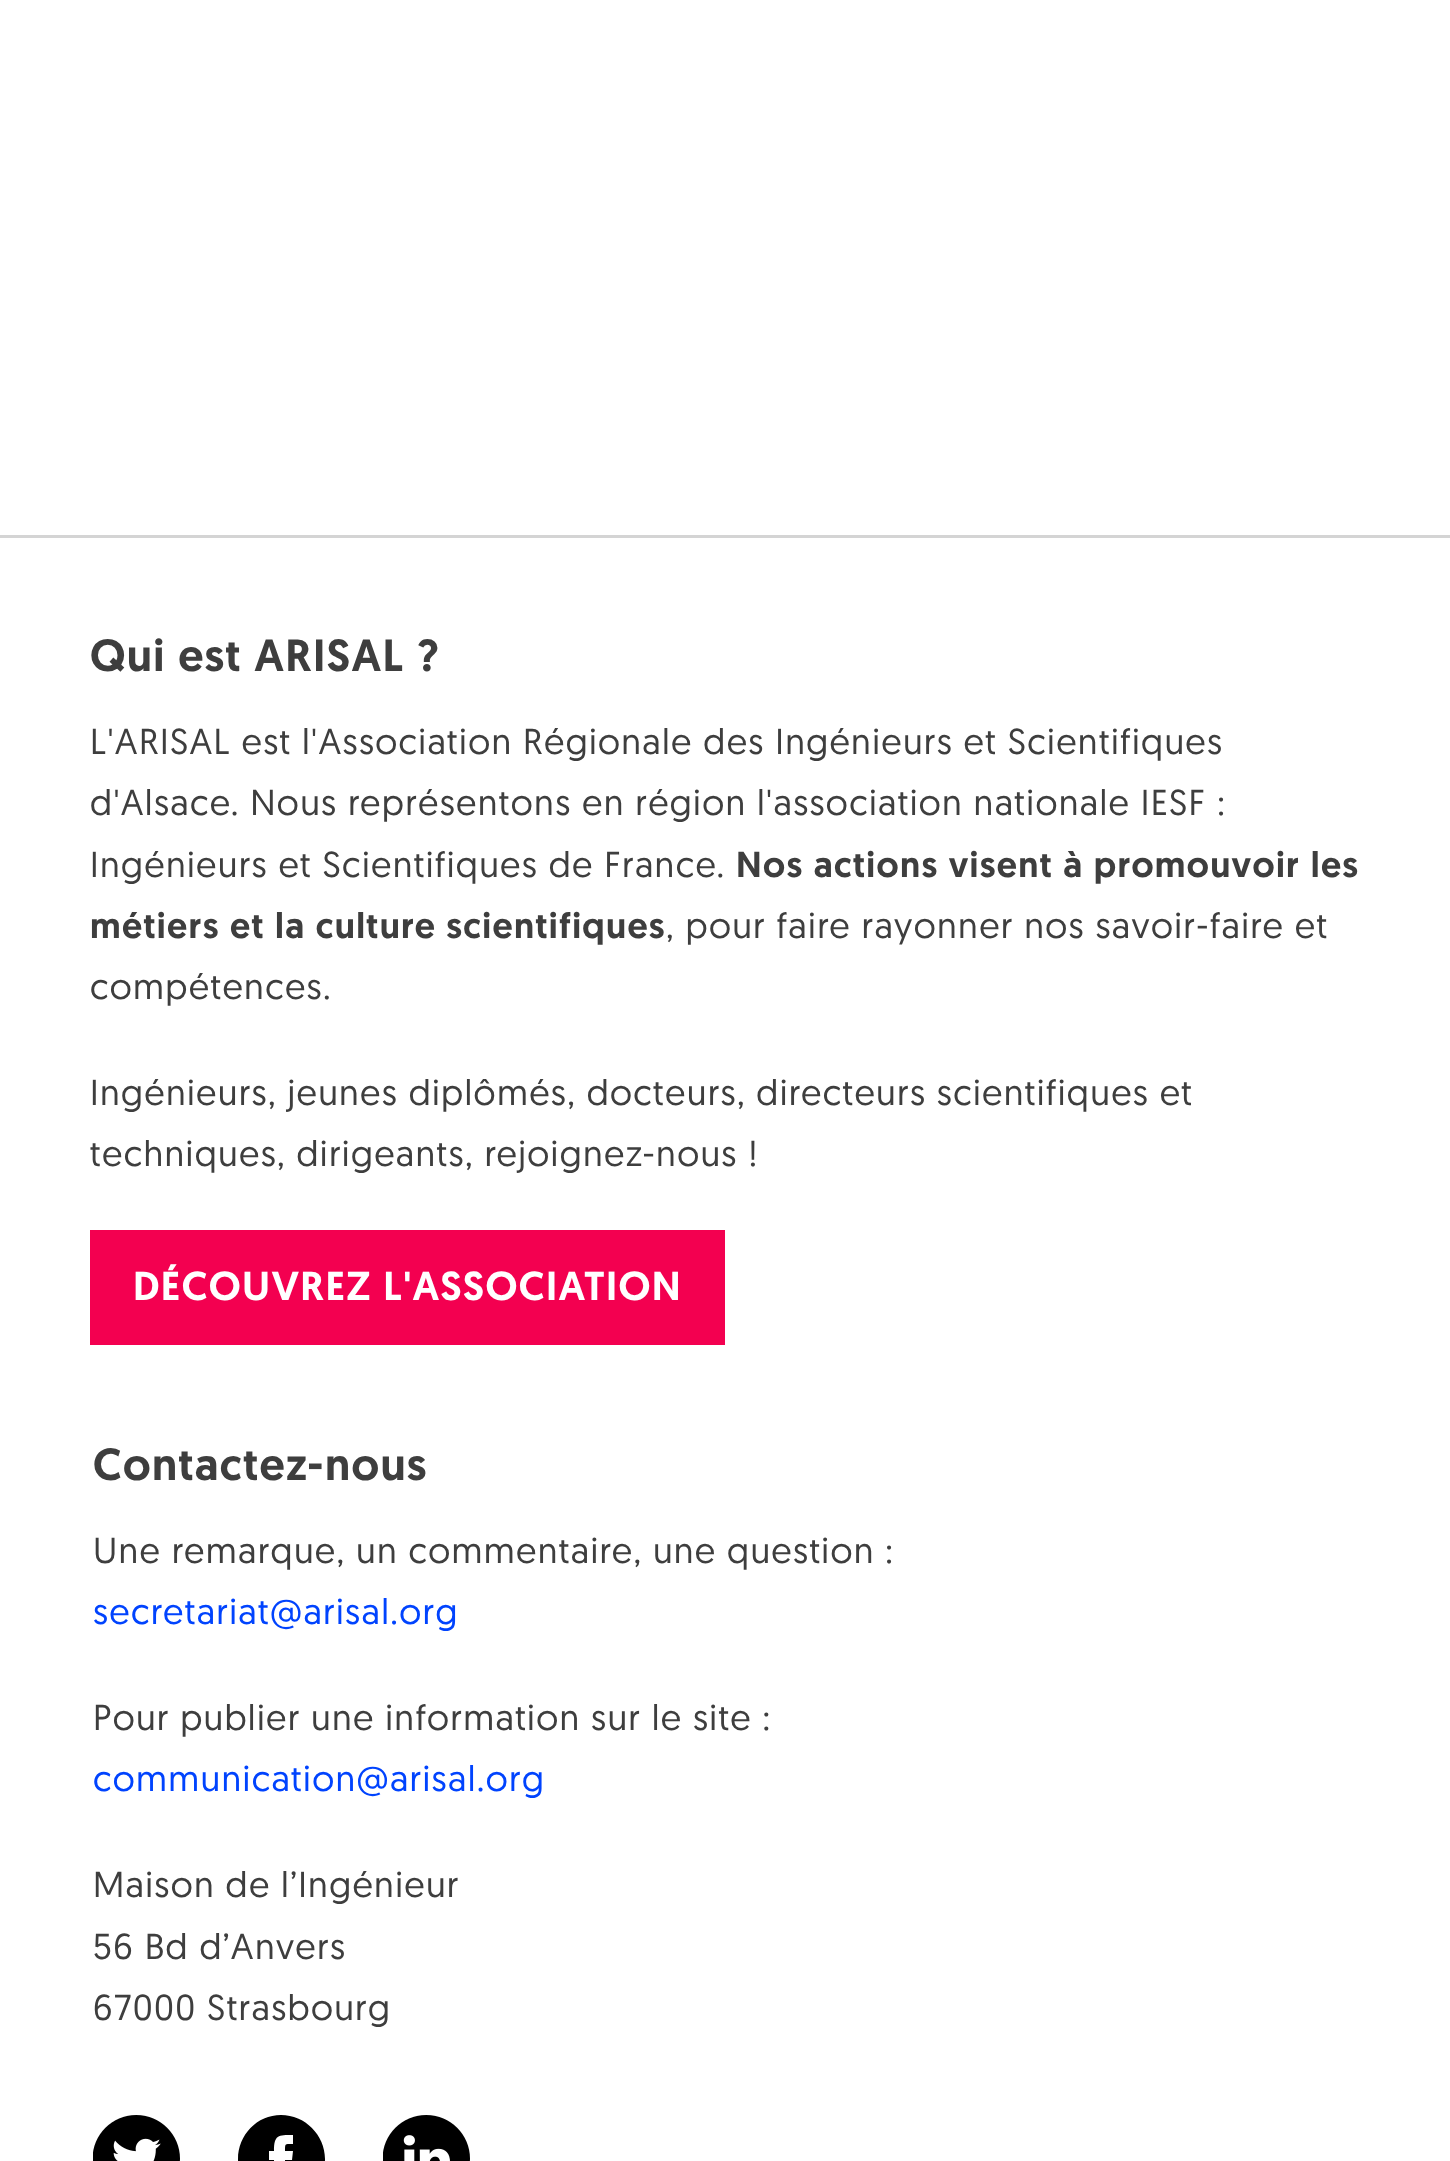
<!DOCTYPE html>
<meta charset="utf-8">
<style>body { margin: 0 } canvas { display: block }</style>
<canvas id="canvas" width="1450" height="2161"></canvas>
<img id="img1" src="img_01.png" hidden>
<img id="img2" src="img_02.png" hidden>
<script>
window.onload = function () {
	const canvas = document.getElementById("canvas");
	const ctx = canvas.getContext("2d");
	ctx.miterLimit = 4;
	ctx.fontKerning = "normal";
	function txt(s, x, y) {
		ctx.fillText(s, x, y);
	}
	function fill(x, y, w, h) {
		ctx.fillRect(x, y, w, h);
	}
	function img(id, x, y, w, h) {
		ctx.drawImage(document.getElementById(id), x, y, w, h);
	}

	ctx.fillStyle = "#FFFFFF";
	fill(0, 0, 1450, 2161);
	ctx.fillStyle = "#D4D4D4";
	fill(0, 535, 1450, 3);
	ctx.fillStyle = "#F30050";
	fill(90, 1230, 635, 115);
	img("img1", 93, 2115, 87, 46);
	ctx.fillStyle = "#000000";
	ctx.beginPath();
	ctx.moveTo(281, 2115);
	ctx.bezierCurveTo(257, 2115, 238, 2135, 238, 2159);
	ctx.bezierCurveTo(238, 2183, 257, 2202, 281, 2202);
	ctx.bezierCurveTo(305, 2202, 325, 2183, 325, 2159);
	ctx.bezierCurveTo(325, 2135, 305, 2115, 281, 2115);
	ctx.closePath();
	ctx.moveTo(292, 2160);
	ctx.lineTo(285, 2160);
	ctx.lineTo(285, 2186);
	ctx.lineTo(274, 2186);
	ctx.lineTo(274, 2160);
	ctx.lineTo(269, 2160);
	ctx.lineTo(269, 2151);
	ctx.lineTo(274, 2151);
	ctx.bezierCurveTo(274, 2135, 278, 2135, 293, 2135);
	ctx.lineTo(293, 2144);
	ctx.bezierCurveTo(285, 2144, 285, 2143, 285, 2151);
	ctx.lineTo(293, 2151);
	ctx.closePath();
	ctx.fill();
	img("img2", 383, 2115, 87, 46);
	ctx.letterSpacing = "1.35px";
	ctx.font = "500 45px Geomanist";
	ctx.fillStyle = "#3E3E3E";
	txt("Qui est ARISAL ?", 90, 671);
	ctx.font = "36px Geomanist";
	txt("L'ARISAL est l'Association Régionale des Ingénieurs et Scientifiques", 90, 754);
	txt("d'Alsace. Nous représentons en région l'association nationale IESF :", 90, 815);
	txt("Ingénieurs et Scientifiques de France.", 90, 877);
	ctx.font = "500 36px Geomanist";
	txt("Nos actions visent à promouvoir les", 736, 877);
	txt("métiers et la culture scientifiques", 90, 938);
	ctx.font = "36px Geomanist";
	txt(", pour faire rayonner nos savoir-faire et", 666, 938);
	txt("compétences.", 90, 999);
	txt("Ingénieurs, jeunes diplômés, docteurs, directeurs scientifiques et", 90, 1105);
	txt("techniques, dirigeants, rejoignez-nous !", 90, 1166);
	ctx.font = "500 40.5px Geomanist";
	ctx.fillStyle = "#FFFFFF";
	txt("DÉCOUVREZ L'ASSOCIATION", 133, 1300);
	ctx.font = "500 45px Geomanist";
	ctx.fillStyle = "#3E3E3E";
	txt("Contactez-nous", 93, 1480);
	ctx.font = "36px Geomanist";
	txt("Une remarque, un commentaire, une question :", 93, 1563);
	ctx.fillStyle = "#0043FE";
	txt("secretariat@arisal.org", 93, 1624);
	ctx.fillStyle = "#3E3E3E";
	txt("Pour publier une information sur le site :", 93, 1730);
	ctx.fillStyle = "#0043FE";
	txt("communication@arisal.org", 93, 1791);
	ctx.fillStyle = "#3E3E3E";
	txt("Maison de l’Ingénieur", 93, 1897);
	txt("56 Bd d’Anvers", 93, 1959);
	txt("67000 Strasbourg", 93, 2020);
};
</script>
